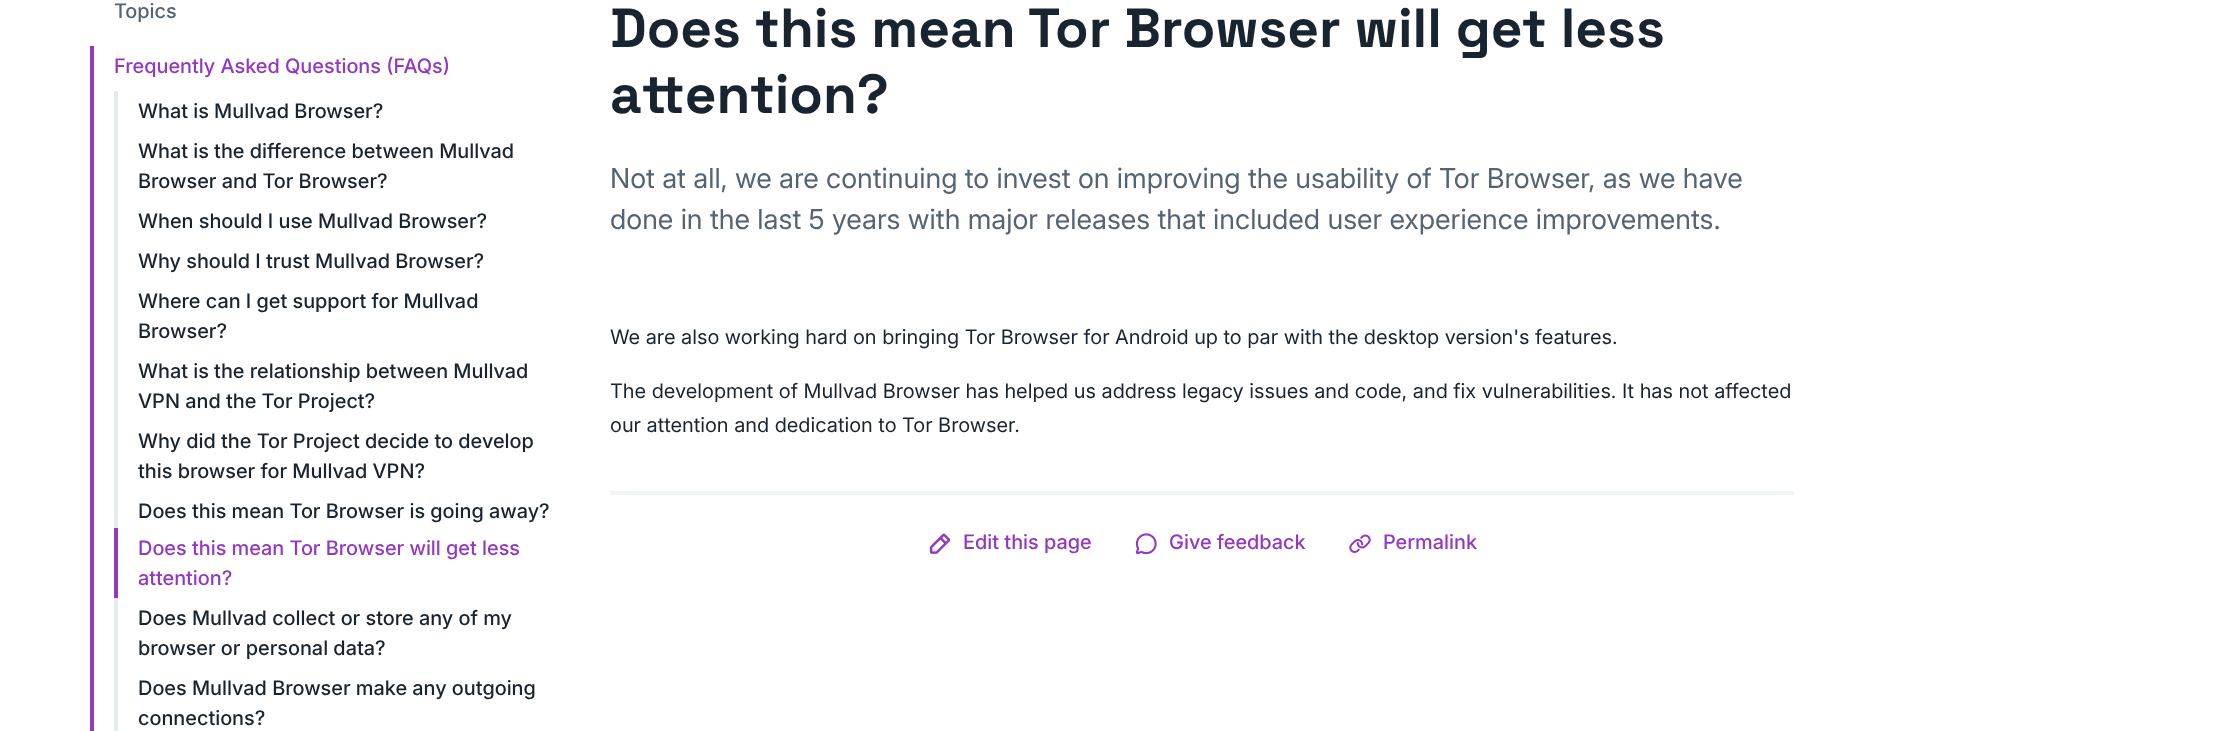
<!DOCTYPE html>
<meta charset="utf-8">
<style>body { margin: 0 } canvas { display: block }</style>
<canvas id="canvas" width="2231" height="731"></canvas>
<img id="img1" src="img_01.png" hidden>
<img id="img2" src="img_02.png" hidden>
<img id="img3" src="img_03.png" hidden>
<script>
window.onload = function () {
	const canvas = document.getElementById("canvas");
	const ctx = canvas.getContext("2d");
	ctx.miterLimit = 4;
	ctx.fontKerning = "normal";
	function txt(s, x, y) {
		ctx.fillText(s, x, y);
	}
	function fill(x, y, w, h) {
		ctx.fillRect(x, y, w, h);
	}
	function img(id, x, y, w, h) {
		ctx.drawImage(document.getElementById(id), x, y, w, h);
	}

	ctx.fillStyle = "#FFFFFF";
	fill(0, 0, 2231, 731);
	ctx.fillStyle = "#9338C1";
	fill(90, 46, 4, 685);
	ctx.fillStyle = "#E4EAF0";
	fill(114, 91, 4, 440);
	ctx.fillStyle = "#9338C1";
	fill(114, 528, 4, 70);
	ctx.fillStyle = "#E4EAF0";
	fill(114, 598, 4, 133);
	ctx.fillStyle = "#F2F5F8";
	fill(610, 491, 1184, 4);
	img("img1", 929, 533, 22, 21);
	img("img2", 1135, 533, 22, 22);
	img("img3", 1349, 534, 22, 19);
	ctx.font = "500 20px Inter";
	ctx.fillStyle = "#556472";
	txt("Topics", 114, 18);
	ctx.fillStyle = "#9338C1";
	txt("Frequently Asked Questions (FAQs)", 114, 73);
	ctx.fillStyle = "#18242F";
	txt("What is Mullvad Browser?", 138, 118);
	txt("What is the difference between Mullvad", 138, 158);
	txt("Browser and Tor Browser?", 138, 188);
	txt("When should I use Mullvad Browser?", 138, 228);
	txt("Why should I trust Mullvad Browser?", 138, 268);
	txt("Where can I get support for Mullvad", 138, 308);
	txt("Browser?", 138, 338);
	txt("What is the relationship between Mullvad", 138, 378);
	txt("VPN and the Tor Project?", 138, 408);
	txt("Why did the Tor Project decide to develop", 138, 448);
	txt("this browser for Mullvad VPN?", 138, 478);
	txt("Does this mean Tor Browser is going away?", 138, 518);
	ctx.fillStyle = "#9338C1";
	txt("Does this mean Tor Browser will get less", 138, 555);
	txt("attention?", 138, 585);
	ctx.fillStyle = "#18242F";
	txt("Does Mullvad collect or store any of my", 138, 625);
	txt("browser or personal data?", 138, 655);
	txt("Does Mullvad Browser make any outgoing", 138, 695);
	txt("connections?", 138, 725);
	ctx.font = "bold 55px Space Grotesk";
	txt("Does this mean Tor Browser will get less", 610, 47);
	txt("attention?", 610, 113);
	ctx.font = "27.5px Inter";
	ctx.fillStyle = "#556472";
	txt("Not at all, we are continuing to invest on improving the usability of Tor Browser, as we have", 610, 188);
	txt("done in the last 5 years with major releases that included user experience improvements.", 610, 229);
	ctx.font = "20px 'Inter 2'";
	ctx.fillStyle = "#18242F";
	txt("We are also working hard on bringing Tor Browser for Android up to par with the desktop version's features.", 610, 344);
	txt("The development of Mullvad Browser has helped us address legacy issues and code, and fix vulnerabilities. It has not affected", 610, 398);
	txt("our attention and dedication to Tor Browser.", 610, 432);
	ctx.font = "500 20px Inter";
	ctx.fillStyle = "#9338C1";
	txt("Edit this page", 963, 549);
	txt("Give feedback", 1169, 549);
	txt("Permalink", 1383, 549);
};
</script>
